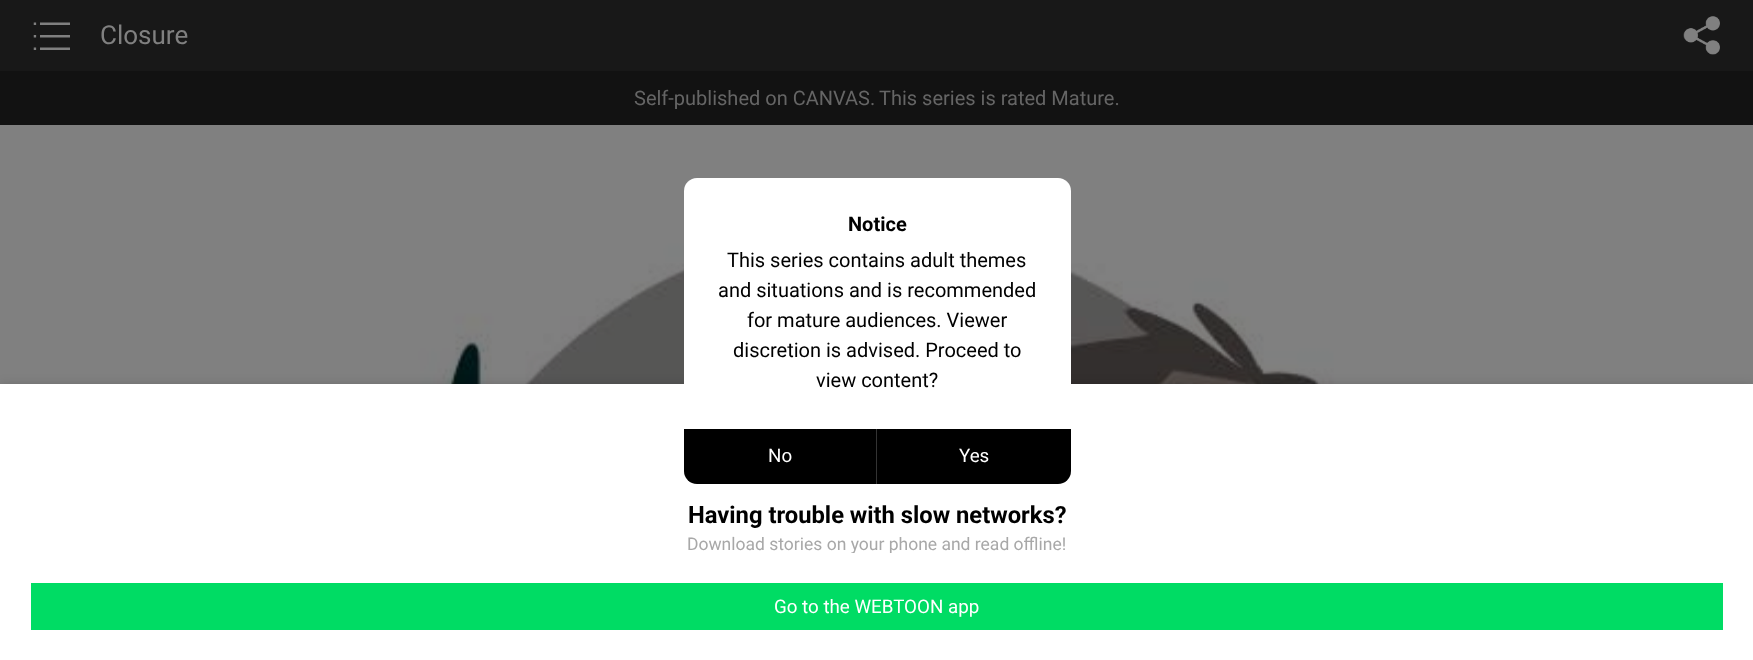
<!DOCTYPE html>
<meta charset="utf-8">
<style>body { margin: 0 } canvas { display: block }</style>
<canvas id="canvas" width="1753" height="660"></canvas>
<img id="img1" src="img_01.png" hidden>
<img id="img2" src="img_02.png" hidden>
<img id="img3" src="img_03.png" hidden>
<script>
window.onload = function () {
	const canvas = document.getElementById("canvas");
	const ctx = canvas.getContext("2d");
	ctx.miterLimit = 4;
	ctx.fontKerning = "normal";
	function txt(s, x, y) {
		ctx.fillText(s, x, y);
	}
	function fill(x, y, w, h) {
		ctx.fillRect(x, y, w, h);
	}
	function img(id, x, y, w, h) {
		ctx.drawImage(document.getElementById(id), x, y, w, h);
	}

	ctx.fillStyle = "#808080";
	fill(0, 0, 1753, 660);
	ctx.fillStyle = "#181818";
	fill(0, 0, 1753, 71);
	img("img1", 33, 22, 37, 28);
	img("img2", 1683, 16, 37, 39);
	ctx.fillStyle = "#121212";
	fill(0, 71, 1753, 54);
	img("img3", 280, 228, 1317, 156);
	ctx.fillStyle = "rgba(0, 0, 0, 0.2)";
	ctx.filter = "blur(6px)";
	ctx.beginPath();
	ctx.rect(0, 386, 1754, 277);
	ctx.fill();
	ctx.filter = "none";
	ctx.fillStyle = "#FFFFFF";
	fill(0, 384, 1753, 276);
	ctx.beginPath();
	ctx.roundRect(684, 178, 387, 251, [13, 13, 0, 0]);
	ctx.fill();
	ctx.fillStyle = "#000000";
	ctx.beginPath();
	ctx.roundRect(684, 429, 387, 55, [0, 0, 13, 13]);
	ctx.fill();
	ctx.fillStyle = "#333333";
	fill(876, 429, 1, 55);
	ctx.fillStyle = "#00DC64";
	fill(31, 583, 1692, 47);
	ctx.font = "26px Roboto";
	ctx.fillStyle = "#808080";
	txt("Closure", 100, 44);
	ctx.font = "20px Roboto";
	ctx.fillStyle = "#656565";
	txt("Self-published on CANVAS.", 634, 105);
	txt("This series is rated Mature.", 879, 105);
	ctx.font = "bold 20px Roboto";
	ctx.fillStyle = "#000000";
	txt("Notice", 848, 231);
	ctx.font = "20px Roboto";
	txt("This series contains adult themes", 727, 267);
	txt("and situations and is recommended", 718, 297);
	txt("for mature audiences. Viewer", 747, 327);
	txt("discretion is advised. Proceed to", 733, 357);
	txt("view content?", 816, 387);
	ctx.font = "18.75px Roboto";
	ctx.fillStyle = "#FFFFFF";
	txt("No", 768, 462);
	txt("Yes", 959, 462);
	ctx.font = "bold 23.75px Roboto";
	ctx.fillStyle = "#000000";
	txt("Having trouble with slow networks?", 688, 523);
	ctx.save();
	ctx.beginPath();
	ctx.rect(31, 535, 1692, 18);
	ctx.clip();
	ctx.font = "17.5px Roboto";
	ctx.fillStyle = "#A8A8A8";
	txt("Download stories on your phone and read offline!", 687, 550);
	ctx.restore();
	ctx.font = "18.75px Roboto";
	ctx.fillStyle = "#FFFFFF";
	txt("Go to the WEBTOON app", 774, 613);
};
</script>
